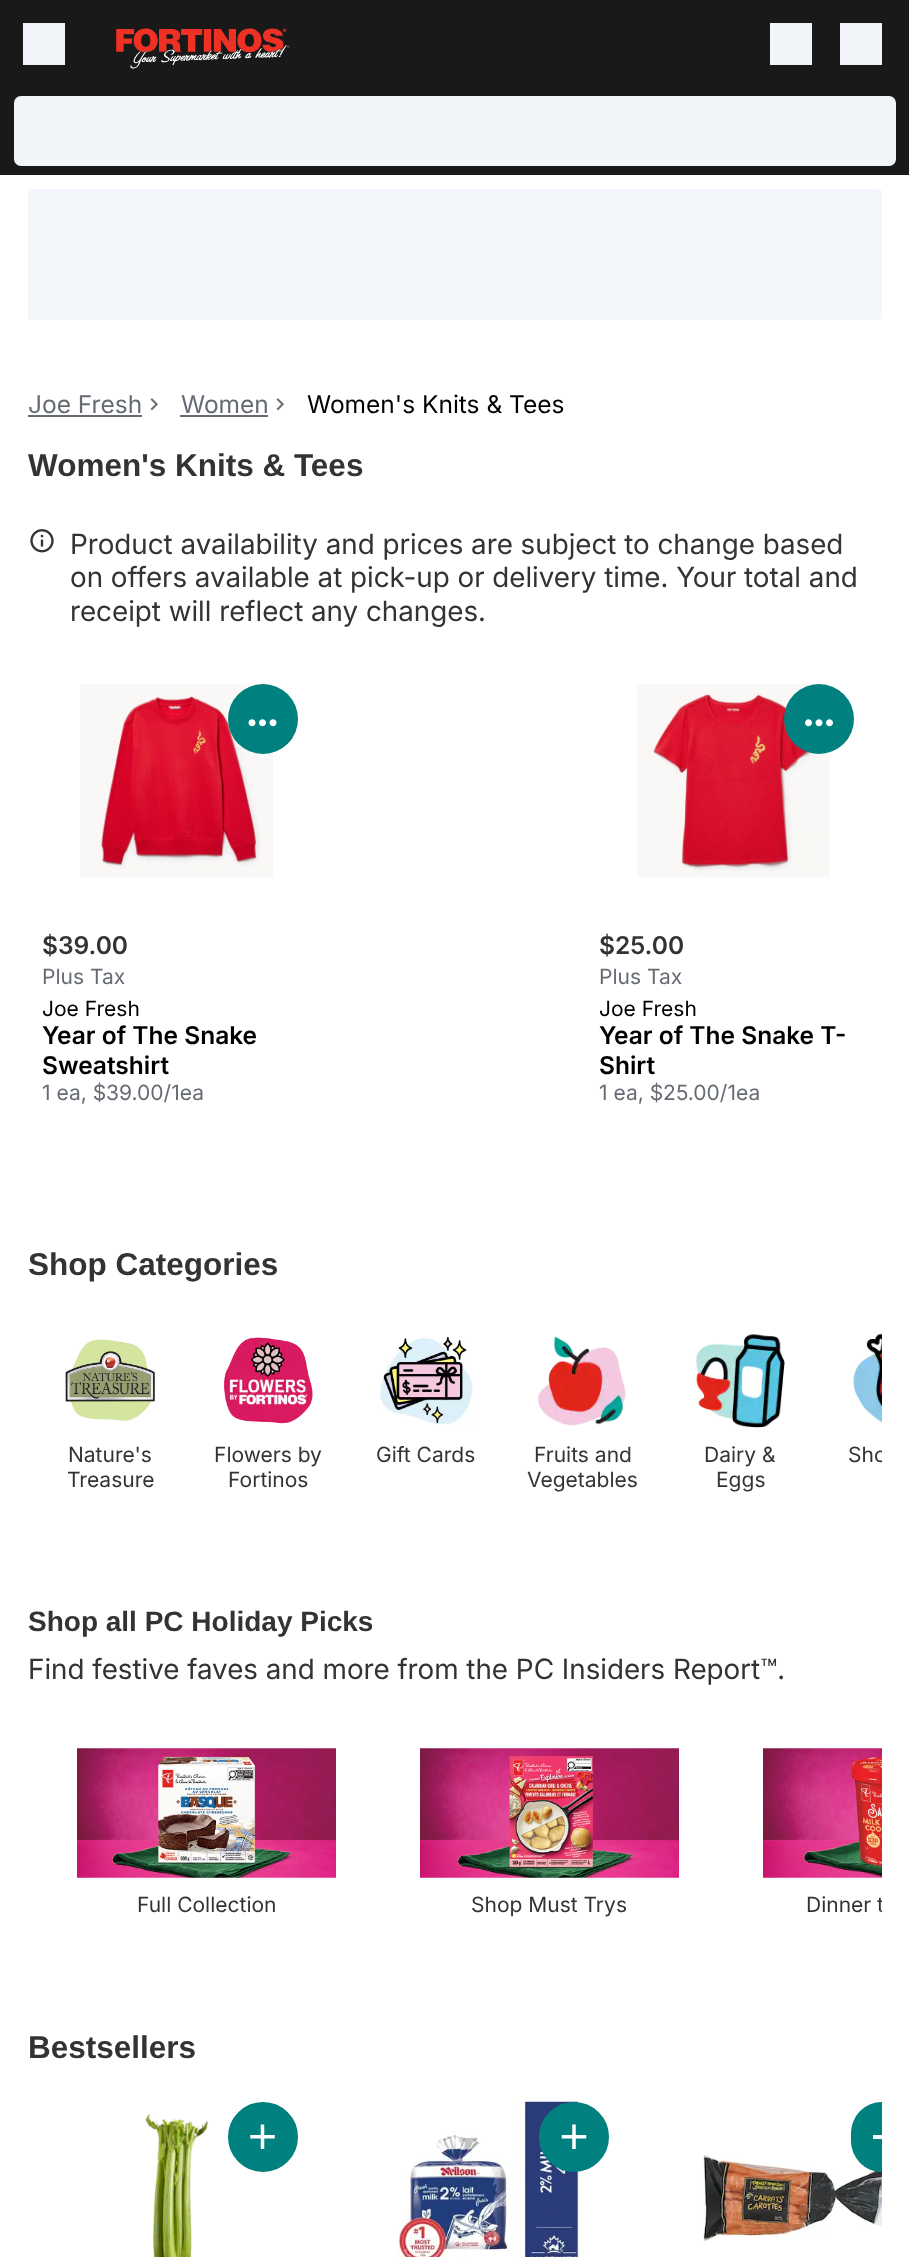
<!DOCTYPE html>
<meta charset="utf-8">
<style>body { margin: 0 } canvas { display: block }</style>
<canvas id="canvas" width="909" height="2257"></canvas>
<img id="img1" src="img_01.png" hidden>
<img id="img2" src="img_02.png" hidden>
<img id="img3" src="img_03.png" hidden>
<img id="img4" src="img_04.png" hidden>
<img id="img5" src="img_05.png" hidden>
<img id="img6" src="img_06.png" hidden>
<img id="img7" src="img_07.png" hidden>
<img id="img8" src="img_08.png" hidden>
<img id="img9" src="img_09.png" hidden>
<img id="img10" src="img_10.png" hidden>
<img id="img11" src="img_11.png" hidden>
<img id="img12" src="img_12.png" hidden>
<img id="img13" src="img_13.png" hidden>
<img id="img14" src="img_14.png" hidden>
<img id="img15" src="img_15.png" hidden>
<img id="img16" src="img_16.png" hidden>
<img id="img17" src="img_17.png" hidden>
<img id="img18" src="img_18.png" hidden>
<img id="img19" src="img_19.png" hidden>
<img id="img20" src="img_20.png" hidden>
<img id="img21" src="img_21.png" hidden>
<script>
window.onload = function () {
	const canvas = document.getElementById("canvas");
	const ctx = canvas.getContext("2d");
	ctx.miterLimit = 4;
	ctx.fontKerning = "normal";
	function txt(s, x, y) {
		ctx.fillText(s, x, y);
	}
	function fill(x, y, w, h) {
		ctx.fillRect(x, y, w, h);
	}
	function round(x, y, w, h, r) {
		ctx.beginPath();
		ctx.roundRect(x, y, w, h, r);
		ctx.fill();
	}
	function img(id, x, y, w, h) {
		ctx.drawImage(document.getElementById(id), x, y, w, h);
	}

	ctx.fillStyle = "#FFFFFF";
	fill(0, 0, 909, 2257);
	ctx.fillStyle = "#191919";
	fill(0, 0, 909, 175);
	ctx.fillStyle = "#F1F5F9";
	fill(23, 23, 42, 42);
	img("img1", 116, 28, 174, 41);
	fill(770, 23, 42, 42);
	fill(840, 23, 42, 42);
	round(14, 96, 882, 70, 7);
	ctx.fillStyle = "#F3F6FA";
	round(28, 189, 854, 131, 4);
	ctx.fillStyle = "#666B73";
	fill(28, 415, 114, 2);
	img("img2", 150, 398, 8, 13);
	fill(180, 415, 88, 2);
	img("img2", 276, 398, 8, 13);
	img("img3", 30, 529, 24, 24);
	img("img4", 80, 684, 193, 193);
	ctx.fillStyle = "#00817F";
	ctx.beginPath();
	ctx.arc(263, 719, 35, 0, Math.PI * 2);
	ctx.fill();
	img("img5", 248, 719, 29, 8);
	img("img6", 637, 684, 193, 193);
	ctx.beginPath();
	ctx.arc(819, 719, 35, 0, Math.PI * 2);
	ctx.fill();
	img("img7", 805, 719, 28, 8);
	img("img8", 65, 1339, 90, 82);
	img("img9", 224, 1337, 89, 87);
	img("img10", 378, 1336, 95, 89);
	img("img11", 537, 1336, 89, 90);
	img("img12", 695, 1334, 90, 94);
	img("img13", 853, 1333, 29, 90);
	img("img14", 77, 1748, 259, 130);
	img("img15", 420, 1748, 259, 130);
	img("img16", 763, 1748, 119, 130);
	img("img17", 145, 2113, 64, 144);
	ctx.beginPath();
	ctx.arc(263, 2137, 34, 0, Math.PI * 2);
	ctx.fill();
	ctx.strokeStyle = "#00817F";
	ctx.lineWidth = 2;
	ctx.stroke();
	img("img18", 250, 2124, 25, 25);
	img("img19", 398, 2101, 183, 156);
	ctx.beginPath();
	ctx.arc(574, 2137, 34, 0, Math.PI * 2);
	ctx.fill();
	ctx.stroke();
	img("img20", 561, 2124, 26, 25);
	img("img21", 703, 2155, 179, 87);
	ctx.beginPath();
	ctx.roundRect(851, 2102, 31, 70, [35, 0, 0, 35]);
	ctx.fill();
	ctx.save();
	ctx.beginPath();
	ctx.rect(28, 2088, 854, 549);
	ctx.clip();
	ctx.beginPath();
	ctx.arc(886, 2137, 34, 0, Math.PI * 2);
	ctx.stroke();
	ctx.restore();
	ctx.fillStyle = "#FFFFFF";
	fill(873, 2135, 9, 4);
	ctx.font = "24.5px Inter";
	ctx.fillStyle = "#666B73";
	txt("Joe Fresh", 28, 413);
	txt("Women", 181, 413);
	ctx.fillStyle = "#000000";
	txt("Women's Knits & Tees", 307, 413);
	ctx.font = "bold 31.5px Liberation Sans";
	ctx.fillStyle = "#333333";
	txt("Women's Knits & Tees", 28, 476);
	ctx.font = "28px 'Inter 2'";
	txt("Product availability and prices are subject to change based", 70, 554);
	txt("on offers available at pick-up or delivery time. Your total and", 70, 587);
	txt("receipt will reflect any changes.", 70, 621);
	ctx.font = "600 24.5px Inter";
	txt("$39.00", 42, 954);
	ctx.font = "21px Inter";
	ctx.fillStyle = "#666B73";
	txt("Plus Tax", 42, 984);
	ctx.fillStyle = "#000000";
	txt("Joe Fresh", 42, 1016);
	ctx.font = "600 24.5px Inter";
	txt("Year of The Snake", 42, 1044);
	txt("Sweatshirt", 42, 1074);
	ctx.font = "21px Inter";
	ctx.fillStyle = "#666B73";
	txt("1 ea, $39.00/1ea", 42, 1100);
	ctx.font = "600 24.5px Inter";
	ctx.fillStyle = "#333333";
	txt("$25.00", 599, 954);
	ctx.font = "21px Inter";
	ctx.fillStyle = "#666B73";
	txt("Plus Tax", 599, 984);
	ctx.fillStyle = "#000000";
	txt("Joe Fresh", 599, 1016);
	ctx.font = "600 24.5px Inter";
	txt("Year of The Snake T-", 599, 1044);
	txt("Shirt", 599, 1074);
	ctx.font = "21px Inter";
	ctx.fillStyle = "#666B73";
	txt("1 ea, $25.00/1ea", 599, 1100);
	ctx.font = "bold 31.5px Liberation Sans";
	ctx.fillStyle = "#333333";
	txt("Shop Categories", 28, 1275);
	ctx.font = "21px Inter";
	txt("Nature's", 68, 1462);
	txt("Treasure", 67, 1487);
	txt("Flowers by", 214, 1462);
	txt("Fortinos", 228, 1487);
	txt("Gift Cards", 376, 1462);
	txt("Fruits and", 534, 1462);
	txt("Vegetables", 527, 1487);
	txt("Dairy &", 704, 1462);
	txt("Eggs", 716, 1487);
	ctx.save();
	ctx.beginPath();
	ctx.rect(837, 1442, 45, 26);
	ctx.clip();
	txt("Sho", 848, 1462);
	ctx.restore();
	ctx.font = "bold 28px Liberation Sans";
	txt("Shop all PC Holiday Picks", 28, 1631);
	ctx.font = "28px 'Inter 2'";
	txt("Find festive faves and more from the PC Insiders Report™.", 28, 1679);
	ctx.font = "21px Inter";
	txt("Full Collection", 137, 1912);
	txt("Shop Must Trys", 471, 1912);
	ctx.save();
	ctx.beginPath();
	ctx.rect(735, 1892, 147, 26);
	ctx.clip();
	txt("Dinner t", 806, 1912);
	ctx.restore();
	ctx.font = "bold 31.5px Liberation Sans";
	txt("Bestsellers", 28, 2058);
};
</script>
